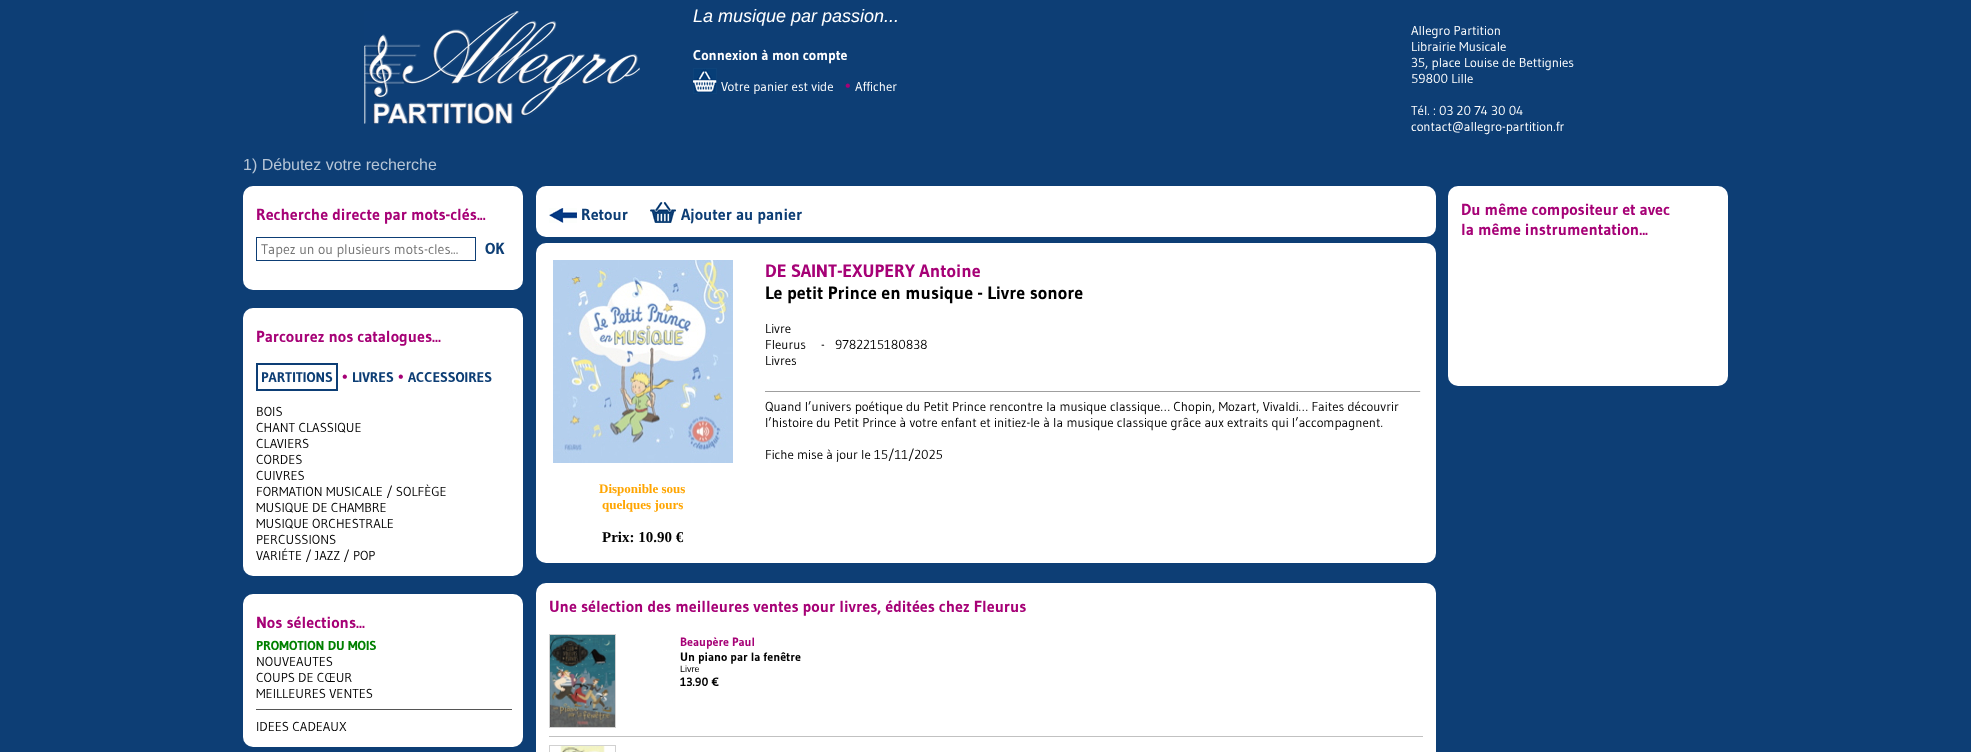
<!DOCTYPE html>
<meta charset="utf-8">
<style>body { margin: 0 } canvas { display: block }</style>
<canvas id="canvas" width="1971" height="752"></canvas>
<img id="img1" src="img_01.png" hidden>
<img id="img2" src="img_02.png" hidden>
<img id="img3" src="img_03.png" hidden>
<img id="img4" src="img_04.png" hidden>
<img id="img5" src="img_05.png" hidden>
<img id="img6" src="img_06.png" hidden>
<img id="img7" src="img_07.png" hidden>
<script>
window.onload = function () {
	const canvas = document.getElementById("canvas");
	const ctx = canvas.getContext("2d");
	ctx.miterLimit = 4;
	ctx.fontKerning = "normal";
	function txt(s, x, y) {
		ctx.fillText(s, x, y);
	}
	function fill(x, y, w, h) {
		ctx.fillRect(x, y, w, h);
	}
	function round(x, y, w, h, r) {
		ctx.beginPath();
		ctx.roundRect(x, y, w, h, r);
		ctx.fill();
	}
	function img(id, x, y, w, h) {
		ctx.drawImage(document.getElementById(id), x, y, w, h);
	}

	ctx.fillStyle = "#0D3E75";
	fill(0, 0, 1971, 752);
	img("img1", 364, 11, 276, 113);
	img("img2", 693, 68, 24, 26);
	ctx.fillStyle = "#FFFFFF";
	round(243, 186, 280, 104, 10);
	ctx.strokeStyle = "#0D3E75";
	ctx.strokeRect(256.5, 237.5, 219, 23);
	round(243, 308, 280, 268, 10);
	ctx.lineWidth = 2;
	ctx.strokeRect(257, 364, 80, 26);
	round(243, 594, 280, 153, 10);
	ctx.fillStyle = "#555555";
	fill(256, 709, 256, 1);
	ctx.fillStyle = "#FFFFFF";
	round(536, 186, 900, 51, 10);
	img("img3", 549, 208, 28, 15);
	img("img4", 650, 202, 26, 21);
	round(536, 243, 900, 320, 10);
	ctx.fillStyle = "#9F9F9F";
	fill(765, 391, 656, 1);
	ctx.fillStyle = "#EEEEEE";
	fill(1420, 391, 1, 1);
	img("img5", 553, 260, 180, 203);
	ctx.fillStyle = "#FFFFFF";
	round(536, 583, 900, 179, 10);
	ctx.strokeStyle = "#D1D1D1";
	ctx.lineWidth = 1;
	ctx.strokeRect(549.5, 634.5, 66, 93);
	img("img6", 550, 635, 65, 92);
	ctx.fillStyle = "#C1C1C1";
	fill(549, 736, 874, 1);
	ctx.strokeRect(549.5, 745.5, 66, 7);
	img("img7", 560, 746, 45, 6);
	ctx.fillStyle = "#FFFFFF";
	round(1448, 186, 280, 200, 10);
	ctx.font = "italic 18px Liberation Sans";
	txt("La musique par passion...", 693, 22);
	ctx.font = "bold 14px Gudea";
	txt("Connexion à mon compte", 693, 60);
	ctx.font = "13px Gudea";
	txt("Votre panier est vide", 721, 91);
	ctx.font = "16px Liberation Sans";
	ctx.fillStyle = "#A60176";
	txt("•", 845, 91);
	ctx.font = "13px Gudea";
	ctx.fillStyle = "#FFFFFF";
	txt("Afficher", 855, 91);
	txt("Allegro Partition", 1411, 35);
	txt("Librairie Musicale", 1411, 51);
	txt("35, place Louise de Bettignies", 1411, 67);
	txt("59800 Lille", 1411, 83);
	txt("Tél. : 03 20 74 30 04", 1411, 115);
	txt("contact@allegro-partition.fr", 1411, 131);
	ctx.font = "16px Liberation Sans";
	ctx.fillStyle = "#B6C5D6";
	txt("1) Débutez votre recherche", 243, 170);
	ctx.font = "bold 16px Gudea";
	ctx.fillStyle = "#A60176";
	txt("Recherche directe par mots-clés...", 256, 220);
	ctx.font = "14px Gudea";
	ctx.fillStyle = "#757575";
	txt("Tapez un ou plusieurs mots-cles...", 261, 254);
	ctx.font = "bold 16px Gudea";
	ctx.fillStyle = "#0D3E75";
	txt("OK", 485, 254);
	ctx.fillStyle = "#A60176";
	txt("Parcourez nos catalogues...", 256, 342);
	ctx.font = "bold 14px Gudea";
	ctx.fillStyle = "#0D3E75";
	txt("PARTITIONS", 261, 382);
	ctx.font = "16px Liberation Sans";
	ctx.fillStyle = "#A60176";
	txt("•", 342, 382);
	ctx.font = "bold 14px Gudea";
	ctx.fillStyle = "#0D3E75";
	txt("LIVRES", 352, 382);
	ctx.font = "16px Liberation Sans";
	ctx.fillStyle = "#A60176";
	txt("•", 398, 382);
	ctx.font = "bold 14px Gudea";
	ctx.fillStyle = "#0D3E75";
	txt("ACCESSOIRES", 408, 382);
	ctx.font = "13px Gudea";
	ctx.fillStyle = "#000000";
	txt("BOIS", 256, 416);
	txt("CHANT CLASSIQUE", 256, 432);
	txt("CLAVIERS", 256, 448);
	txt("CORDES", 256, 464);
	txt("CUIVRES", 256, 480);
	txt("FORMATION MUSICALE / SOLFÈGE", 256, 496);
	txt("MUSIQUE DE CHAMBRE", 256, 512);
	txt("MUSIQUE ORCHESTRALE", 256, 528);
	txt("PERCUSSIONS", 256, 544);
	txt("VARIÉTE / JAZZ / POP", 256, 560);
	ctx.font = "bold 16px Gudea";
	ctx.fillStyle = "#A60176";
	txt("Nos sélections...", 256, 628);
	ctx.font = "bold 13px Gudea";
	ctx.fillStyle = "#008000";
	txt("PROMOTION DU MOIS", 256, 650);
	ctx.font = "13px Gudea";
	ctx.fillStyle = "#000000";
	txt("NOUVEAUTES", 256, 666);
	txt("COUPS DE CŒUR", 256, 682);
	txt("MEILLEURES VENTES", 256, 698);
	txt("IDEES CADEAUX", 256, 731);
	ctx.font = "bold 16px Gudea";
	ctx.fillStyle = "#0D3E75";
	txt("Retour", 581, 220);
	txt("Ajouter au panier", 681, 220);
	ctx.font = "bold 18px Gudea";
	ctx.fillStyle = "#A60176";
	txt("DE SAINT-EXUPERY Antoine", 765, 277);
	ctx.fillStyle = "#000000";
	txt("Le petit Prince en musique - Livre sonore", 765, 299);
	ctx.font = "13px Gudea";
	txt("Livre", 765, 333);
	txt("Fleurus", 765, 349);
	txt("-", 821, 349);
	txt("9782215180838", 835, 349);
	txt("Livres", 765, 365);
	txt("Quand l’univers poétique du Petit Prince rencontre la musique classique… Chopin, Mozart, Vivaldi… Faites découvrir", 765, 411);
	txt("l’histoire du Petit Prince à votre enfant et initiez-le à la musique classique grâce aux extraits qui l’accompagnent.", 765, 427);
	txt("Fiche mise à jour le 15/11/2025", 765, 459);
	ctx.font = "bold 13px Liberation Serif";
	ctx.fillStyle = "#FFA500";
	txt("Disponible sous", 599, 493);
	txt("quelques jours", 602, 509);
	ctx.font = "bold 15px Liberation Serif";
	ctx.fillStyle = "#000000";
	txt("Prix: 10.90 €", 602, 542);
	ctx.font = "bold 16px Gudea";
	ctx.fillStyle = "#A60176";
	txt("Une sélection des meilleures ventes pour livres, éditées chez Fleurus", 549, 612);
	ctx.font = "bold 12px Gudea";
	txt("Beaupère Paul", 680, 646);
	ctx.fillStyle = "#000000";
	txt("Un piano par la fenêtre", 680, 661);
	ctx.font = "9px Liberation Sans";
	txt("Livre", 680, 672);
	ctx.font = "bold 12px Gudea";
	txt("13.90 €", 680, 686);
	ctx.font = "bold 16px Gudea";
	ctx.fillStyle = "#A60176";
	txt("Du même compositeur et avec", 1461, 215);
	txt("la même instrumentation...", 1461, 235);
};
</script>
